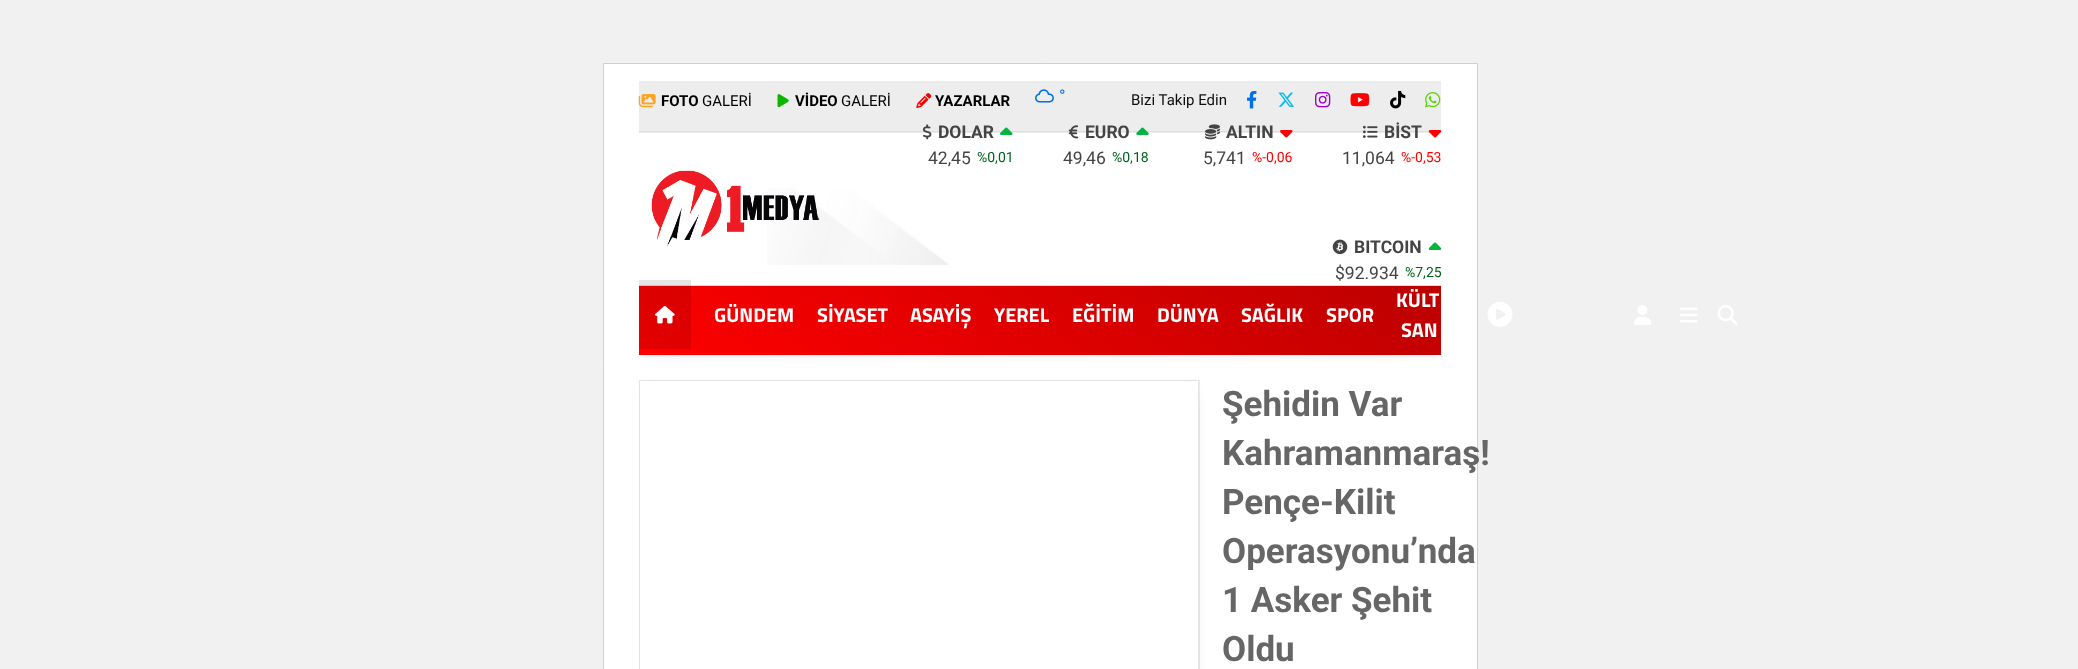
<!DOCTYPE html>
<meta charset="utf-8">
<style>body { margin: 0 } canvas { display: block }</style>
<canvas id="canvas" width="2078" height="669"></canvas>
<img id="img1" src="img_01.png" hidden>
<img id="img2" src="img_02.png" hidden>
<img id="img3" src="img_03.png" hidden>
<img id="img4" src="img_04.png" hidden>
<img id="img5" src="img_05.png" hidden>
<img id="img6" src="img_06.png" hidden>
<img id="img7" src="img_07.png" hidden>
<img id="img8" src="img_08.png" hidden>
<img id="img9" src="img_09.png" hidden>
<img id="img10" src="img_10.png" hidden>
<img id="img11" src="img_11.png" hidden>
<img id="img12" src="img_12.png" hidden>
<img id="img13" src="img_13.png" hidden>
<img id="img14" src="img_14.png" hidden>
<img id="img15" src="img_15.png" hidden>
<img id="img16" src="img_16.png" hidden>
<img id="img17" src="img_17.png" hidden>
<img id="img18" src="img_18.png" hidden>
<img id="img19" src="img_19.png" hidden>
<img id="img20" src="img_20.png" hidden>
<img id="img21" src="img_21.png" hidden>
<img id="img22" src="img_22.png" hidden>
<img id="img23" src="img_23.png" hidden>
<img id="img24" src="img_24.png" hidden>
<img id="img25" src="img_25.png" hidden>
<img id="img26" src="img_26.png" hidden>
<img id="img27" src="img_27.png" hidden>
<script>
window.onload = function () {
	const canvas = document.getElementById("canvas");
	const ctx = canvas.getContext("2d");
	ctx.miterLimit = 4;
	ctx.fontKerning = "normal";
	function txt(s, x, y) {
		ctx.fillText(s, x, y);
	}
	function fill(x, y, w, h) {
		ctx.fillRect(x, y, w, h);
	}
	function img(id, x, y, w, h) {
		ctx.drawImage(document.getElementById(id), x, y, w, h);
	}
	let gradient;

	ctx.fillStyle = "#F1F1F1";
	fill(0, 0, 2078, 669);
	ctx.fillStyle = "#FFFFFF";
	ctx.beginPath();
	ctx.rect(603.5, 63.5, 874, 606);
	ctx.fill();
	ctx.strokeStyle = "#CCD0D4";
	ctx.stroke();
	ctx.fillStyle = "#EDEDED";
	fill(639, 81, 802, 52);
	ctx.fillStyle = "#DDDDDD";
	fill(639, 131, 790, 1);
	img("img1", 1035, 89, 19, 14);
	img("img2", 638, 94, 18, 14);
	img("img3", 777, 94, 12, 14);
	img("img4", 916, 93, 16, 16);
	img("img5", 1247, 90, 10, 19);
	img("img6", 1278, 92, 16, 15);
	img("img7", 1315, 92, 16, 16);
	img("img8", 1350, 93, 20, 14);
	img("img9", 1390, 90, 16, 19);
	img("img10", 1425, 92, 16, 16);
	img("img11", 767, 188, 182, 77);
	fill(639, 285, 802, 1);
	img("img12", 651, 170, 169, 76);
	img("img13", 922, 124, 10, 16);
	img("img14", 1000, 127, 13, 8);
	img("img15", 1068, 125, 11, 14);
	img("img16", 1136, 127, 13, 8);
	img("img17", 1205, 124, 15, 16);
	img("img18", 1280, 130, 13, 8);
	img("img19", 1363, 125, 15, 13);
	img("img20", 1428, 130, 14, 8);
	img("img21", 1332, 239, 16, 16);
	img("img22", 1428, 242, 14, 8);
	ctx.fillStyle = "rgba(0, 0, 0, 0.1)";
	ctx.filter = "blur(4.5px)";
	ctx.beginPath();
	ctx.rect(643, 294, 795, 61);
	ctx.fill();
	ctx.filter = "none";
	gradient = ctx.createLinearGradient(1162, 118, 918, 523);
	gradient.addColorStop(0, "#BC0000");
	gradient.addColorStop(1, "#FF0000");
	ctx.fillStyle = gradient;
	fill(639, 286, 802, 69);
	ctx.fillStyle = "rgba(0, 0, 0, 0.1)";
	fill(639, 280, 52, 69);
	img("img23", 655, 306, 20, 18);
	img("img24", 1487, 302, 26, 25);
	img("img25", 1634, 305, 17, 20);
	img("img26", 1680, 307, 18, 16);
	img("img27", 1717, 305, 21, 20);
	ctx.fillStyle = "#EDEDED";
	fill(1199, 380, 1, 289);
	ctx.fillStyle = "rgba(0, 0, 0, 0.3)";
	ctx.filter = "blur(8px)";
	ctx.beginPath();
	ctx.rect(654, 395, 535, 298);
	ctx.fill();
	ctx.filter = "none";
	ctx.fillStyle = "#FFFFFF";
	ctx.beginPath();
	ctx.rect(639.5, 380.5, 559, 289);
	ctx.fill();
	ctx.strokeStyle = "#E2E2E2";
	ctx.stroke();
	ctx.font = "17.5px Roboto";
	ctx.fillStyle = "#0072E5";
	txt("°", 1059, 102);
	ctx.font = "bold 15px Roboto";
	ctx.fillStyle = "#000000";
	txt("FOTO", 661, 106);
	ctx.font = "15px Roboto";
	txt("GALERİ", 702, 106);
	ctx.font = "bold 15px Roboto";
	txt("VİDEO", 795, 106);
	ctx.font = "15px Roboto";
	txt("GALERİ", 841, 106);
	ctx.font = "bold 15px Roboto";
	txt("YAZARLAR", 935, 106);
	ctx.font = "15px Roboto";
	ctx.fillStyle = "#0F0F0F";
	txt("Bizi Takip Edin", 1131, 105);
	ctx.font = "bold 17.5px Roboto";
	ctx.fillStyle = "#444444";
	txt("DOLAR", 938, 138);
	ctx.font = "17.5px Roboto";
	txt("42,45", 928, 164);
	ctx.font = "14px Roboto";
	ctx.fillStyle = "#00661D";
	txt("%0,01", 977, 162);
	ctx.font = "bold 17.5px Roboto";
	ctx.fillStyle = "#444444";
	txt("EURO", 1085, 138);
	ctx.font = "17.5px Roboto";
	txt("49,46", 1063, 164);
	ctx.font = "14px Roboto";
	ctx.fillStyle = "#00661D";
	txt("%0,18", 1112, 162);
	ctx.font = "bold 17.5px Roboto";
	ctx.fillStyle = "#444444";
	txt("ALTIN", 1226, 138);
	ctx.font = "17.5px Roboto";
	txt("5,741", 1203, 164);
	ctx.font = "14px Roboto";
	ctx.fillStyle = "#FF0000";
	txt("%-0,06", 1252, 162);
	ctx.font = "bold 17.5px Roboto";
	ctx.fillStyle = "#444444";
	txt("BİST", 1384, 138);
	ctx.font = "17.5px Roboto";
	txt("11,064", 1342, 164);
	ctx.font = "14px Roboto";
	ctx.fillStyle = "#FF0000";
	txt("%-0,53", 1401, 162);
	ctx.font = "bold 17.5px Roboto";
	ctx.fillStyle = "#444444";
	txt("BITCOIN", 1354, 253);
	ctx.font = "17.5px Roboto";
	txt("$92.934", 1335, 279);
	ctx.font = "14px Roboto";
	ctx.fillStyle = "#00661D";
	txt("%7,25", 1405, 277);
	ctx.font = "bold 20px Titillium Web";
	ctx.fillStyle = "#FFFFFF";
	txt("GÜNDEM", 714, 322);
	txt("SİYASET", 817, 322);
	txt("ASAYİŞ", 910, 322);
	txt("YEREL", 994, 322);
	txt("EĞİTİM", 1072, 322);
	txt("DÜNYA", 1157, 322);
	txt("SAĞLIK", 1241, 322);
	txt("SPOR", 1326, 322);
	txt("KÜLT", 1396, 307);
	txt("SAN", 1401, 337);
	ctx.font = "bold 35px Roboto";
	ctx.fillStyle = "#666666";
	txt("Şehidin Var", 1222, 416);
	txt("Kahramanmaraş!", 1222, 465);
	txt("Pençe-Kilit", 1222, 514);
	txt("Operasyonu’nda", 1222, 563);
	txt("1 Asker Şehit", 1222, 612);
	txt("Oldu", 1222, 661);
};
</script>
